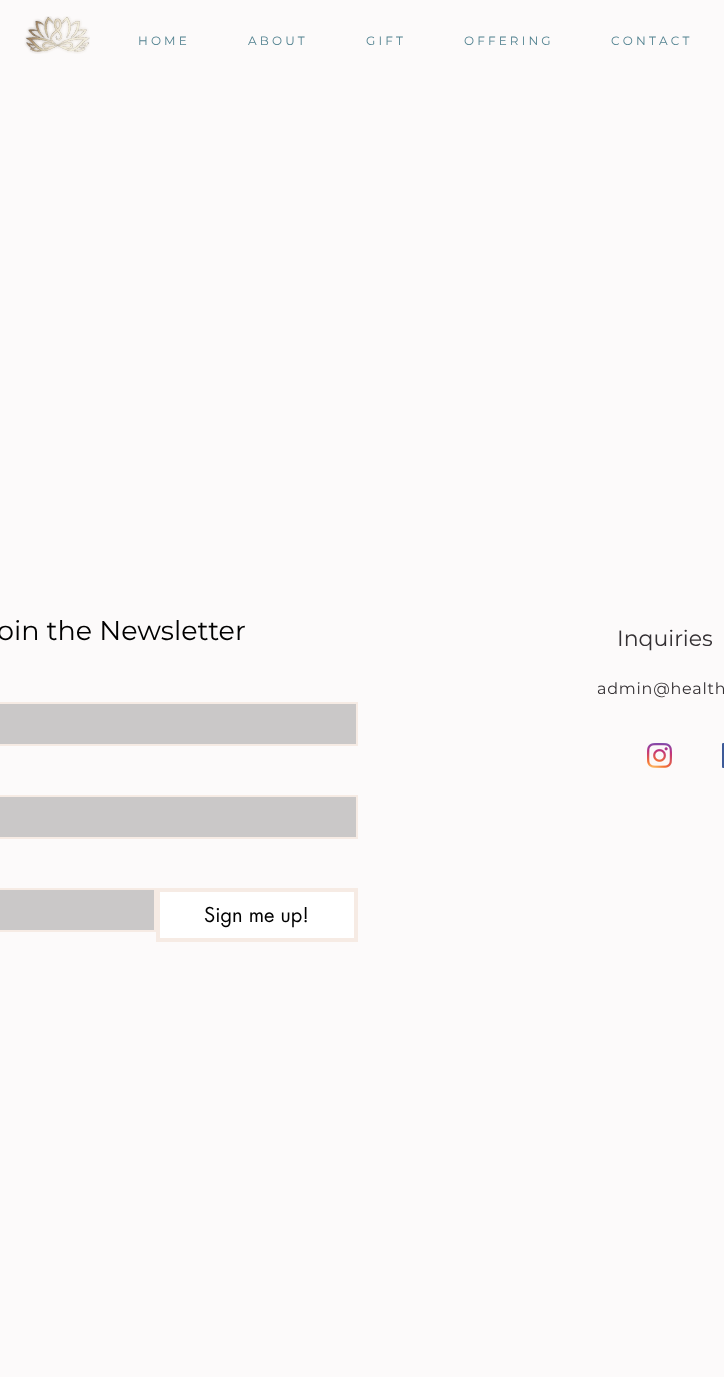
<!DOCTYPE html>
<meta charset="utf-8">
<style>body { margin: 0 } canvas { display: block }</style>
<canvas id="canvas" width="724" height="1377"></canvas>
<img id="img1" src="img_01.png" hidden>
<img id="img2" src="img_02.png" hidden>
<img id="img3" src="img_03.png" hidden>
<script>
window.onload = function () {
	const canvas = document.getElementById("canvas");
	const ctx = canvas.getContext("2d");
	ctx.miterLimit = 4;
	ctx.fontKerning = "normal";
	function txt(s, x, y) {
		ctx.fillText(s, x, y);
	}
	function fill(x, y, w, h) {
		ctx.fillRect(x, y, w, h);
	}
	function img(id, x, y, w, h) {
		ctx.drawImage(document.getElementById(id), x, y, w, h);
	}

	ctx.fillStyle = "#FCFAFA";
	fill(0, 0, 724, 1377);
	img("img1", 24, 16, 66, 38);
	ctx.fillStyle = "#CAC8C8";
	ctx.beginPath();
	ctx.rect(-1, 703, 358, 42);
	ctx.fill();
	ctx.strokeStyle = "#F6EBE4";
	ctx.lineWidth = 2;
	ctx.stroke();
	ctx.beginPath();
	ctx.rect(-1, 796, 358, 42);
	ctx.fill();
	ctx.stroke();
	ctx.beginPath();
	ctx.rect(-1, 889, 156, 42);
	ctx.fill();
	ctx.stroke();
	ctx.fillStyle = "#FFFFFF";
	ctx.beginPath();
	ctx.rect(158, 890, 198, 50);
	ctx.fill();
	ctx.lineWidth = 4;
	ctx.stroke();
	img("img2", 647, 743, 25, 25);
	img("img3", 722, 743, 2, 25);
	ctx.font = "12px Montserrat";
	ctx.fillStyle = "#528290";
	txt("H O M E", 138, 45);
	txt("A B O U T", 248, 45);
	txt("G I F T", 366, 45);
	txt("O F F E R I N G", 464, 45);
	txt("C O N T A C T", 611, 45);
	ctx.font = "27px Montserrat";
	ctx.fillStyle = "#000000";
	txt("oin the Newsletter", -3, 640);
	ctx.font = "20px futura";
	txt("Sign me up!", 204, 922);
	ctx.font = "22px Montserrat";
	ctx.fillStyle = "#343033";
	txt("Inquiries", 617, 646);
	ctx.letterSpacing = "0.75px";
	ctx.font = "16px Montserrat";
	txt("admin@health", 597, 694);
};
</script>
